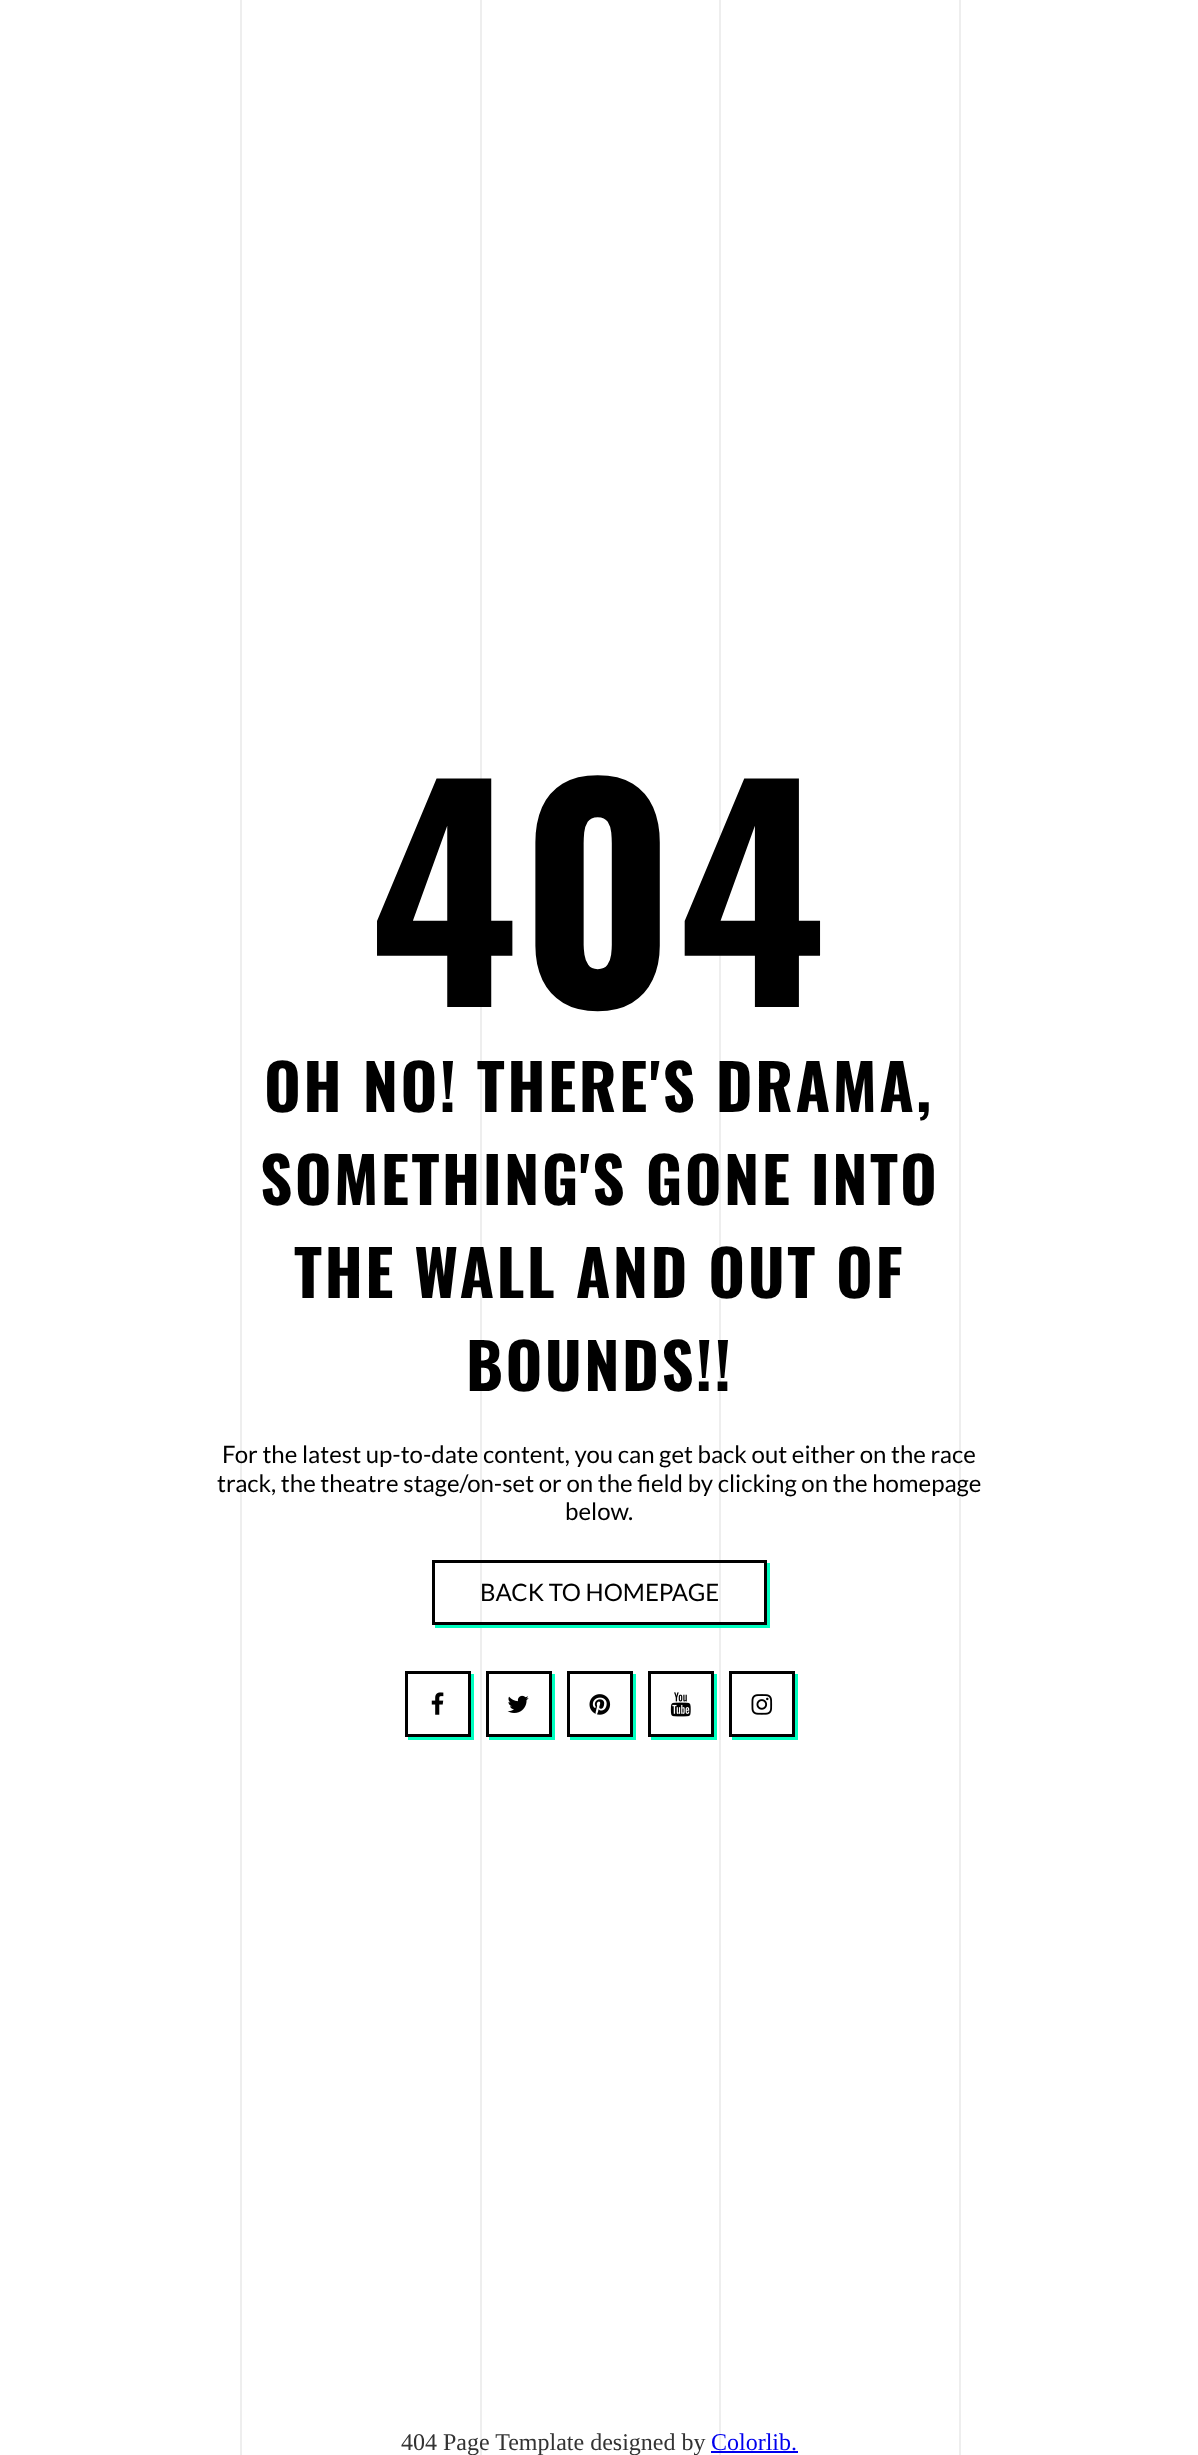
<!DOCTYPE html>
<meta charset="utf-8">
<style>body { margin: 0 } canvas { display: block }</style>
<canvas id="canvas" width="1198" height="2455"></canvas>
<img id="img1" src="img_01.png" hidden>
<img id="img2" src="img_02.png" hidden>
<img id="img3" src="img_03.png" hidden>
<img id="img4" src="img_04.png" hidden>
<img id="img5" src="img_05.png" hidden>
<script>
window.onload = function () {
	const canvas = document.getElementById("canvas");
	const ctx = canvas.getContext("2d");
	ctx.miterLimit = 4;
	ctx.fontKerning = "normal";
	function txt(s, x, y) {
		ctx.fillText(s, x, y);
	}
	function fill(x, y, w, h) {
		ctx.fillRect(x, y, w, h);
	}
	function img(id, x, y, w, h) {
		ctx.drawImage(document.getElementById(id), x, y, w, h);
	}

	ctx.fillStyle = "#FFFFFF";
	fill(0, 0, 1198, 2455);
	ctx.fillStyle = "#EEEEEE";
	fill(240, 0, 2, 2455);
	fill(480, 0, 2, 2455);
	fill(719, 0, 2, 2455);
	fill(959, 0, 2, 2455);
	ctx.fillStyle = "#00FFC0";
	ctx.beginPath();
	ctx.moveTo(770, 1563);
	ctx.lineTo(764, 1563);
	ctx.lineTo(764, 1622);
	ctx.lineTo(435, 1622);
	ctx.lineTo(435, 1628);
	ctx.lineTo(770, 1628);
	ctx.closePath();
	ctx.fill();
	ctx.strokeStyle = "#000000";
	ctx.lineWidth = 3;
	ctx.strokeRect(433.5, 1561.5, 332, 62);
	ctx.beginPath();
	ctx.moveTo(474, 1674);
	ctx.lineTo(468, 1674);
	ctx.lineTo(468, 1734);
	ctx.lineTo(408, 1734);
	ctx.lineTo(408, 1740);
	ctx.lineTo(474, 1740);
	ctx.closePath();
	ctx.fill();
	ctx.strokeRect(406.5, 1672.5, 63, 63);
	img("img1", 431, 1692, 13, 23);
	ctx.beginPath();
	ctx.moveTo(555, 1674);
	ctx.lineTo(549, 1674);
	ctx.lineTo(549, 1734);
	ctx.lineTo(489, 1734);
	ctx.lineTo(489, 1740);
	ctx.lineTo(555, 1740);
	ctx.closePath();
	ctx.fill();
	ctx.strokeRect(487.5, 1672.5, 63, 63);
	img("img2", 507, 1695, 22, 18);
	ctx.beginPath();
	ctx.moveTo(636, 1674);
	ctx.lineTo(630, 1674);
	ctx.lineTo(630, 1734);
	ctx.lineTo(570, 1734);
	ctx.lineTo(570, 1740);
	ctx.lineTo(636, 1740);
	ctx.closePath();
	ctx.fill();
	ctx.strokeRect(568.5, 1672.5, 63, 63);
	img("img3", 589, 1694, 22, 21);
	ctx.beginPath();
	ctx.moveTo(717, 1674);
	ctx.lineTo(711, 1674);
	ctx.lineTo(711, 1734);
	ctx.lineTo(651, 1734);
	ctx.lineTo(651, 1740);
	ctx.lineTo(717, 1740);
	ctx.closePath();
	ctx.fill();
	ctx.strokeRect(649.5, 1672.5, 63, 63);
	img("img4", 670, 1692, 21, 25);
	ctx.beginPath();
	ctx.moveTo(798, 1674);
	ctx.lineTo(792, 1674);
	ctx.lineTo(792, 1734);
	ctx.lineTo(732, 1734);
	ctx.lineTo(732, 1740);
	ctx.lineTo(798, 1740);
	ctx.closePath();
	ctx.fill();
	ctx.strokeRect(730.5, 1672.5, 63, 63);
	img("img5", 751, 1694, 22, 21);
	ctx.fillStyle = "#0000EE";
	fill(711, 2451, 87, 2);
	ctx.letterSpacing = "2.4px";
	ctx.font = "bold 282px Oswald";
	ctx.fillStyle = "#000000";
	txt("404", 370, 1007);
	ctx.font = "bold 63px Oswald";
	txt("OH NO! THERE'S DRAMA,", 264, 1112);
	txt("SOMETHING'S GONE INTO", 260, 1205);
	txt("THE WALL AND OUT OF", 294, 1298);
	txt("BOUNDS!!", 466, 1391);
	ctx.letterSpacing = "0px";
	ctx.font = "24px Lato";
	txt("For the latest up-to-date content, you can get back out either on the race", 222, 1463);
	txt("track, the theatre stage/on-set or on the field by clicking on the homepage", 217, 1492);
	txt("below.", 565, 1520);
	txt("BACK TO HOMEPAGE", 480, 1601);
	ctx.font = "24px Liberation Serif";
	ctx.fillStyle = "#333333";
	txt("404 Page Template designed by", 401, 2450);
	ctx.fillStyle = "#0000EE";
	txt("Colorlib.", 711, 2450);
};
</script>
